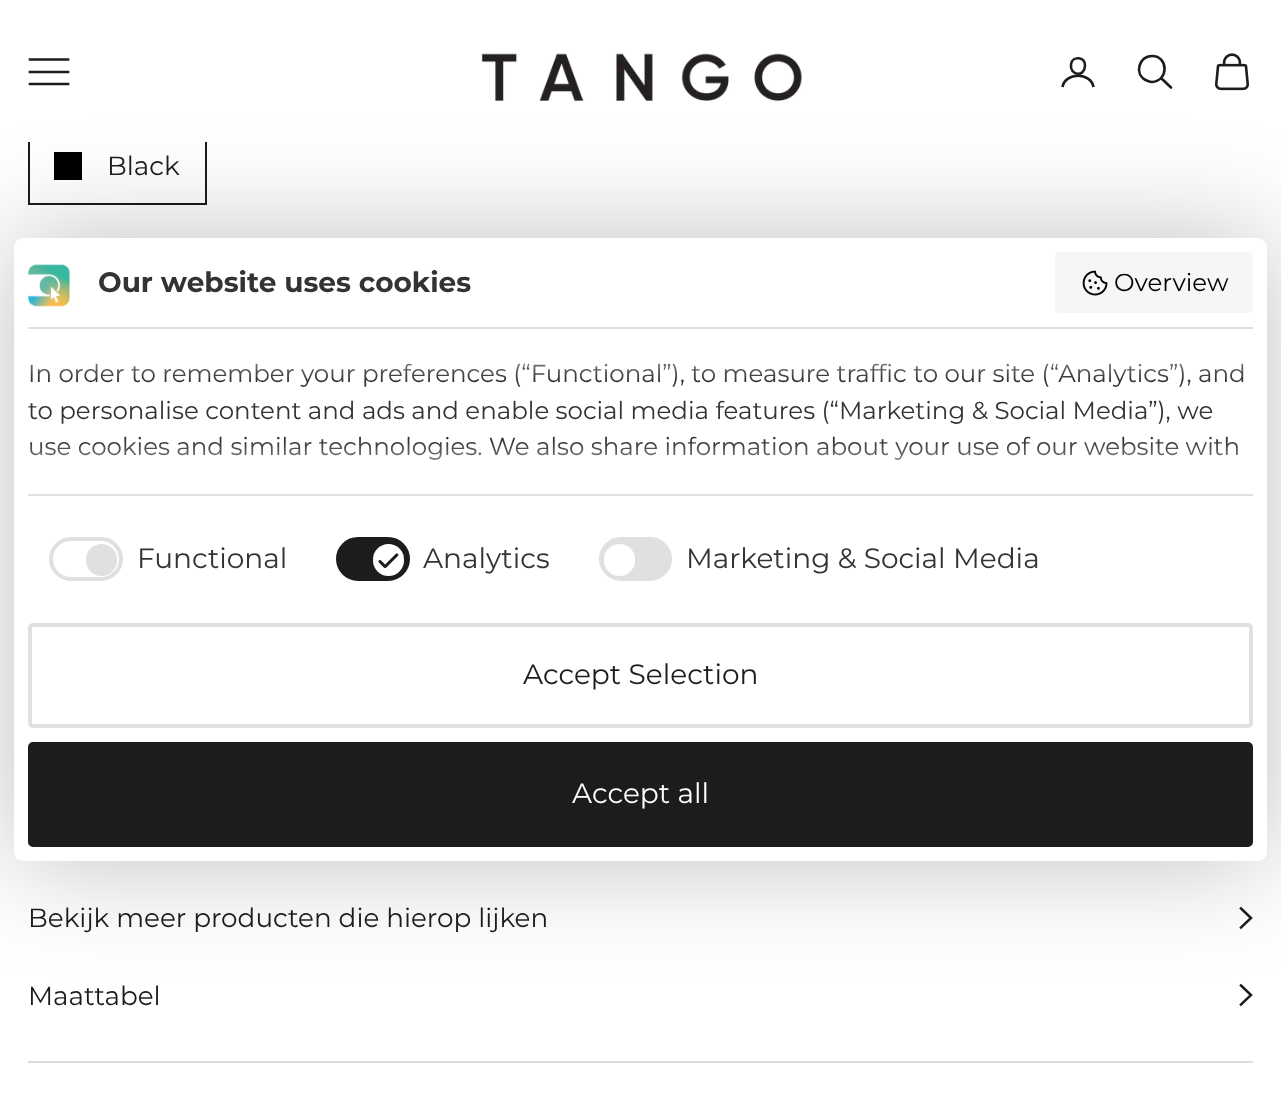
<!DOCTYPE html>
<meta charset="utf-8">
<style>body { margin: 0 } canvas { display: block }</style>
<canvas id="canvas" width="1281" height="1099"></canvas>
<img id="img1" src="img_01.png" hidden>
<img id="img2" src="img_02.png" hidden>
<img id="img3" src="img_03.png" hidden>
<img id="img4" src="img_04.png" hidden>
<img id="img5" src="img_05.png" hidden>
<script>
window.onload = function () {
	const canvas = document.getElementById("canvas");
	const ctx = canvas.getContext("2d");
	ctx.miterLimit = 4;
	ctx.fontKerning = "normal";
	function txt(s, x, y) {
		ctx.fillText(s, x, y);
	}
	function fill(x, y, w, h) {
		ctx.fillRect(x, y, w, h);
	}
	function round(x, y, w, h, r) {
		ctx.beginPath();
		ctx.roundRect(x, y, w, h, r);
		ctx.fill();
	}
	function img(id, x, y, w, h) {
		ctx.drawImage(document.getElementById(id), x, y, w, h);
	}
	let gradient;

	ctx.fillStyle = "#FFFFFF";
	fill(0, 0, 1281, 1099);
	ctx.strokeStyle = "#1C1C1C";
	ctx.lineWidth = 2;
	ctx.strokeRect(29, 129, 177, 75);
	fill(28, 128, 179, 14);
	ctx.beginPath();
	ctx.moveTo(30, 84);
	ctx.lineTo(68, 84);
	ctx.moveTo(30, 72);
	ctx.lineTo(68, 72);
	ctx.moveTo(30, 59.5);
	ctx.lineTo(68, 59.5);
	ctx.lineWidth = 2.6;
	ctx.lineCap = "square";
	ctx.stroke();
	img("img1", 481, 53, 321, 48);
	ctx.beginPath();
	ctx.moveTo(1085, 66);
	ctx.bezierCurveTo(1084.5, 77.5, 1069.5, 75.5, 1071, 64.5);
	ctx.bezierCurveTo(1072, 55.5, 1086, 56.5, 1085, 66);
	ctx.closePath();
	ctx.lineCap = "round";
	ctx.lineJoin = "round";
	ctx.stroke();
	ctx.beginPath();
	ctx.moveTo(1062.5, 87);
	ctx.bezierCurveTo(1065, 72, 1091, 72, 1093.5, 87);
	ctx.lineCap = "butt";
	ctx.lineJoin = "miter";
	ctx.stroke();
	ctx.beginPath();
	ctx.moveTo(1152, 56);
	ctx.bezierCurveTo(1139, 56, 1134, 73.5, 1145.5, 80);
	ctx.bezierCurveTo(1147.5, 81, 1150, 82, 1152, 82);
	ctx.bezierCurveTo(1169, 81, 1168.5, 56, 1152, 56);
	ctx.closePath();
	ctx.stroke();
	ctx.beginPath();
	ctx.moveTo(1161.5, 78.5);
	ctx.lineTo(1171, 87.5);
	ctx.lineCap = "round";
	ctx.stroke();
	img("img2", 1214, 53, 36, 38);
	ctx.fillStyle = "#000000";
	fill(54, 152, 28, 28);
	ctx.beginPath();
	ctx.moveTo(1241, 908.5);
	ctx.lineTo(1251, 918);
	ctx.lineTo(1241, 927.5);
	ctx.lineWidth = 2.5;
	ctx.lineCap = "square";
	ctx.stroke();
	ctx.beginPath();
	ctx.moveTo(1241, 985.5);
	ctx.lineTo(1251, 995);
	ctx.lineTo(1241, 1004.5);
	ctx.stroke();
	ctx.fillStyle = "#DDDDDD";
	fill(28, 1061, 1225, 2);
	ctx.fillStyle = "rgba(0, 0, 0, 0.25)";
	ctx.filter = "blur(56px)";
	ctx.beginPath();
	ctx.roundRect(14, 238, 1253, 623, 9);
	ctx.fill();
	ctx.filter = "none";
	ctx.fillStyle = "#FFFFFF";
	round(14, 238, 1253, 623, 9);
	img("img3", 28, 264, 42, 43);
	ctx.fillStyle = "#F6F6F6";
	round(1055, 252, 198, 61, 5);
	img("img4", 1082, 270, 26, 26);
	ctx.fillStyle = "#E0E0E0";
	fill(28, 327, 1225, 2);
	fill(28, 494, 1225, 2);
	ctx.beginPath();
	ctx.roundRect(51, 539, 70, 40, 20);
	ctx.strokeStyle = "#E0E0E0";
	ctx.lineWidth = 4;
	ctx.stroke();
	round(86, 544, 31, 32, 15.5);
	ctx.fillStyle = "#1C1C1C";
	ctx.beginPath();
	ctx.roundRect(338, 539, 70, 40, 20);
	ctx.fill();
	ctx.strokeStyle = "#1C1C1C";
	ctx.stroke();
	ctx.fillStyle = "#FFFFFF";
	round(373, 544, 31, 32, 15.5);
	img("img5", 378, 553, 21, 16);
	ctx.fillStyle = "#E0E0E0";
	ctx.beginPath();
	ctx.roundRect(601, 539, 69, 40, 20);
	ctx.fill();
	ctx.strokeStyle = "#E0E0E0";
	ctx.stroke();
	ctx.fillStyle = "#FFFFFF";
	round(604, 544, 31, 32, 15.5);
	ctx.beginPath();
	ctx.roundRect(30, 625, 1221, 101, 3);
	ctx.stroke();
	ctx.fillStyle = "#1C1C1C";
	ctx.beginPath();
	ctx.roundRect(30, 744, 1221, 101, 3);
	ctx.fill();
	ctx.strokeStyle = "#1C1C1C";
	ctx.stroke();
	ctx.font = "100 26.25px Montserrat";
	txt("Black", 107, 175);
	txt("Bekijk meer producten die hierop lijken", 28, 927);
	txt("Maattabel", 28, 1005);
	ctx.font = "bold 28px Montserrat";
	ctx.fillStyle = "#333333";
	txt("Our website uses cookies", 98, 292);
	ctx.font = "100 24.5px Montserrat";
	ctx.fillStyle = "#000000";
	txt("Overview", 1114, 291);
	ctx.fillStyle = "#333333";
	txt("In order to remember your preferences (“Functional”), to measure traffic to our site (“Analytics”), and", 28, 382);
	txt("to personalise content and ads and enable social media features (“Marketing & Social Media”), we", 28, 419);
	txt("use cookies and similar technologies. We also share information about your use of our website with", 28, 455);
	gradient = ctx.createLinearGradient(641, 380, 641, 327);
	gradient.addColorStop(0, "rgba(255, 255, 255, 0)");
	gradient.addColorStop(1, "#FFFFFF");
	ctx.fillStyle = gradient;
	fill(30, 363, 1214, 16);
	gradient = ctx.createLinearGradient(641, 441, 641, 494);
	gradient.addColorStop(0, "rgba(255, 255, 255, 0)");
	gradient.addColorStop(1, "#FFFFFF");
	ctx.fillStyle = gradient;
	fill(30, 442, 1208, 18);
	ctx.font = "100 28px Montserrat";
	ctx.fillStyle = "#333333";
	txt("Functional", 137, 568);
	txt("Analytics", 423, 568);
	txt("Marketing & Social Media", 686, 568);
	ctx.fillStyle = "#1C1C1C";
	txt("Accept Selection", 523, 684);
	ctx.fillStyle = "#FFFFFF";
	txt("Accept all", 572, 803);
};
</script>
